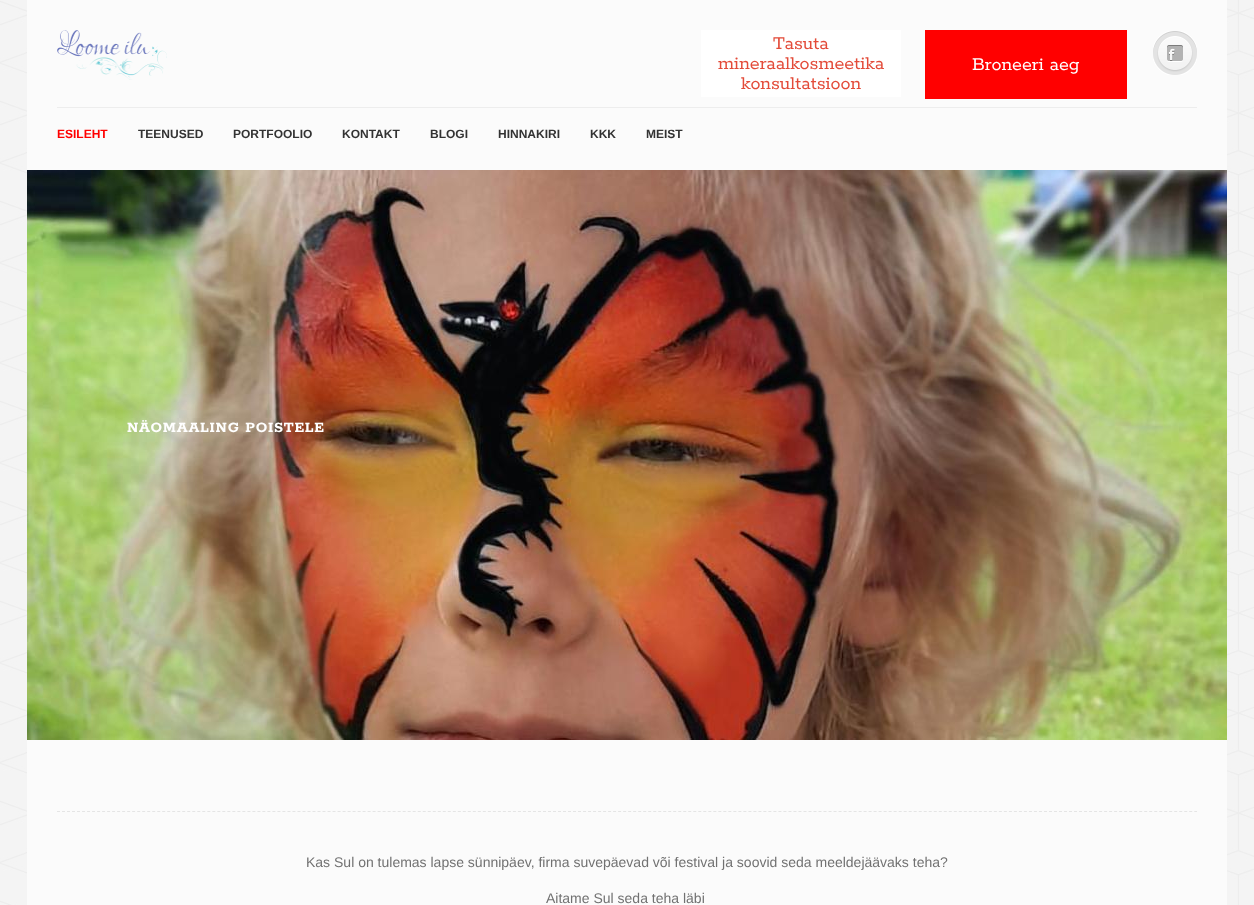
<!DOCTYPE html>
<meta charset="utf-8">
<style>body { margin: 0 } canvas { display: block }</style>
<canvas id="canvas" width="1254" height="905"></canvas>
<img id="img1" src="img_01.png" hidden>
<img id="img2" src="img_02.png" hidden>
<img id="img3" src="img_03.png" hidden>
<img id="img4" src="img_04.png" hidden>
<script>
window.onload = function () {
	const canvas = document.getElementById("canvas");
	const ctx = canvas.getContext("2d");
	ctx.miterLimit = 4;
	ctx.fontKerning = "normal";
	function txt(s, x, y) {
		ctx.fillText(s, x, y);
	}
	function fill(x, y, w, h) {
		ctx.fillRect(x, y, w, h);
	}
	function img(id, x, y, w, h) {
		ctx.drawImage(document.getElementById(id), x, y, w, h);
	}

	ctx.fillStyle = "#FFFFFF";
	fill(0, 0, 1254, 905);
	img("img1", 0, 0, 1254, 905);
	ctx.fillStyle = "#FBFBFB";
	fill(27, 0, 1200, 170);
	img("img2", 57, 30, 110, 50);
	ctx.fillStyle = "#FFFFFF";
	fill(701, 30, 200, 67);
	ctx.fillStyle = "#FF0000";
	fill(925, 30, 202, 69);
	img("img3", 1153, 31, 44, 44);
	ctx.fillStyle = "#EDEDED";
	fill(57, 107, 1140, 1);
	img("img4", 27, 170, 1200, 570);
	ctx.fillStyle = "#FBFBFB";
	fill(27, 740, 1200, 165);
	ctx.beginPath();
	ctx.moveTo(57, 811.5);
	ctx.lineTo(1197, 811.5);
	ctx.strokeStyle = "#E5E5E5";
	ctx.setLineDash([3, 2.01]);
	ctx.stroke();
	ctx.font = "20px Rokkitt";
	ctx.fillStyle = "#E34B39";
	txt("Tasuta", 773, 49);
	txt("mineraalkosmeetika", 718, 69);
	txt("konsultatsioon", 741, 89);
	ctx.fillStyle = "#FFFFFF";
	txt("Broneeri aeg", 972, 70);
	ctx.font = "bold 12px Liberation Sans";
	ctx.fillStyle = "#FF0000";
	txt("ESILEHT", 57, 138);
	ctx.fillStyle = "#333333";
	txt("TEENUSED", 138, 138);
	txt("PORTFOOLIO", 233, 138);
	txt("KONTAKT", 342, 138);
	txt("BLOGI", 430, 138);
	txt("HINNAKIRI", 498, 138);
	txt("KKK", 590, 138);
	txt("MEIST", 646, 138);
	ctx.letterSpacing = "0.75px";
	ctx.font = "bold 16px Rokkitt";
	ctx.fillStyle = "#FFFFFF";
	txt("NÄOMAALING POISTELE", 127, 432);
	ctx.letterSpacing = "0px";
	ctx.font = "14px Liberation Sans";
	ctx.fillStyle = "#717171";
	txt("Kas Sul on tulemas lapse sünnipäev, firma suvepäevad või festival ja soovid seda meeldejäävaks teha?", 306, 867);
	txt("Aitame Sul seda teha läbi", 546, 903);
};
</script>
